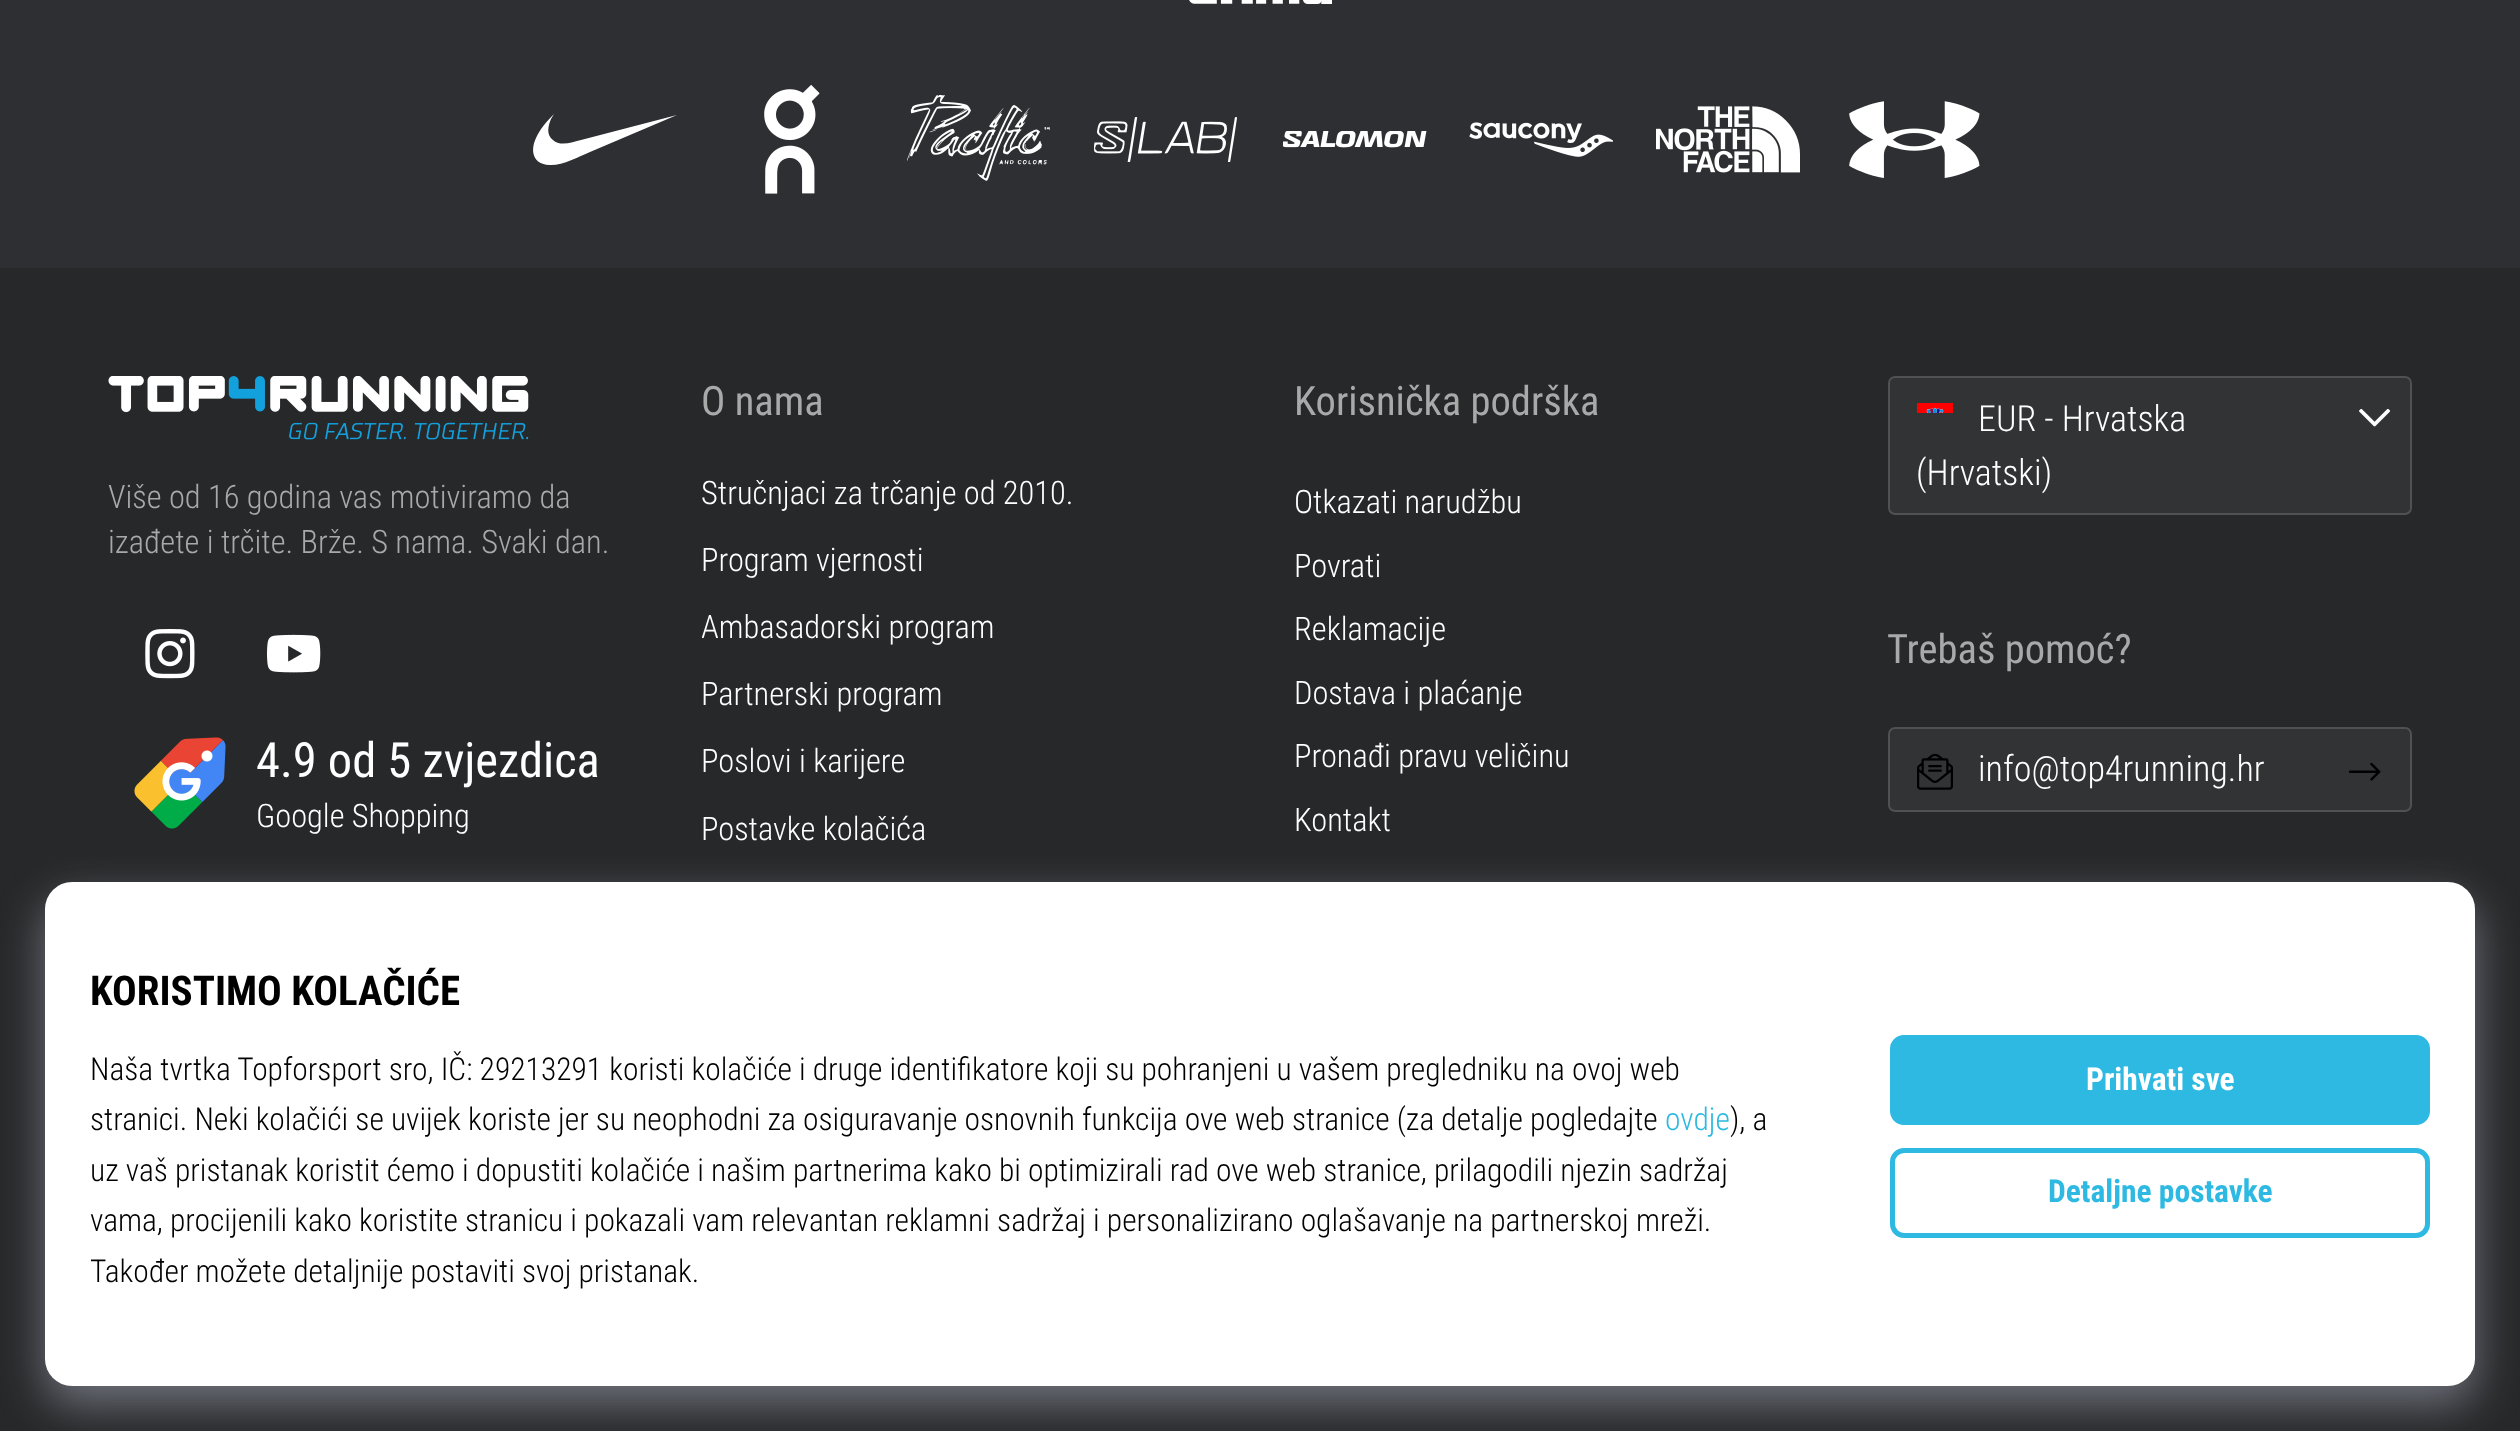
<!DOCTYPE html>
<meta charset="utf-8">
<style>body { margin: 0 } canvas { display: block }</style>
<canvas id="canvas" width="2520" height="1431"></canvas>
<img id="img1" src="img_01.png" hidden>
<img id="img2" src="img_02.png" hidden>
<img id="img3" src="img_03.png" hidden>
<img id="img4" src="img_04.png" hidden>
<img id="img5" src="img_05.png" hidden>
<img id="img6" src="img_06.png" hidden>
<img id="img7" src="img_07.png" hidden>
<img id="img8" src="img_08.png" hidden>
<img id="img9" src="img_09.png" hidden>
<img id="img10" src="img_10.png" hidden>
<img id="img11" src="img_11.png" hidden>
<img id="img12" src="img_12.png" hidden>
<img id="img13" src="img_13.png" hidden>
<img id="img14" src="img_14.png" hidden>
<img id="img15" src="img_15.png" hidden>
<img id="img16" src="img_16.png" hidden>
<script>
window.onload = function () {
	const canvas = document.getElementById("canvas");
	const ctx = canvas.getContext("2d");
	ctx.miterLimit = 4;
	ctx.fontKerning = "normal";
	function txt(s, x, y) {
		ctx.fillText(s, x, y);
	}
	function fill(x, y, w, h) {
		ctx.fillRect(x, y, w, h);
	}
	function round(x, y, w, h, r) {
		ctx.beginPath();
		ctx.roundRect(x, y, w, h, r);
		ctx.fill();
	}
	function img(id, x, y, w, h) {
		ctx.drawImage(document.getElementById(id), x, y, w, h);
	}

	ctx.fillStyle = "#262829";
	fill(0, 0, 2520, 1431);
	ctx.fillStyle = "#2E2F33";
	fill(0, 0, 2520, 268);
	img("img1", 1189, 0, 143, 5);
	ctx.fillStyle = "#FFFFFF";
	ctx.beginPath();
	ctx.moveTo(549, 165);
	ctx.bezierCurveTo(533, 164, 530, 151, 536, 138);
	ctx.bezierCurveTo(540, 129, 547, 121, 554, 114);
	ctx.lineTo(551, 119);
	ctx.bezierCurveTo(548, 126, 546, 135, 553, 140);
	ctx.bezierCurveTo(560, 147, 573, 142, 581, 140);
	ctx.lineTo(677, 115);
	ctx.lineTo(590, 152);
	ctx.bezierCurveTo(578, 157, 562, 166, 549, 165);
	ctx.closePath();
	ctx.fill();
	img("img2", 764, 84, 56, 110);
	img("img3", 907, 95, 143, 86);
	img("img4", 1094, 117, 143, 45);
	img("img5", 1283, 131, 144, 17);
	img("img6", 1469, 122, 144, 35);
	img("img7", 1656, 106, 144, 67);
	img("img8", 1849, 101, 131, 77);
	img("img9", 108, 376, 421, 64);
	img("img10", 145, 629, 50, 50);
	img("img11", 266, 634, 55, 39);
	img("img12", 134, 737, 92, 92);
	ctx.fillStyle = "#313334";
	round(1888, 376, 524, 139, 7);
	ctx.beginPath();
	ctx.roundRect(1889, 377, 522, 137, 6);
	ctx.strokeStyle = "rgba(255, 255, 255, 0.15)";
	ctx.lineWidth = 2;
	ctx.stroke();
	img("img13", 1917, 403, 36, 10);
	img("img14", 2359, 408, 32, 19);
	round(1888, 727, 524, 85, 7);
	ctx.beginPath();
	ctx.roundRect(1889, 728, 522, 83, 6);
	ctx.stroke();
	img("img15", 1917, 754, 36, 36);
	img("img16", 2349, 762, 32, 19);
	ctx.fillStyle = "rgba(188, 190, 210, 0.5)";
	ctx.filter = "blur(22.5px)";
	ctx.beginPath();
	ctx.roundRect(45, 900, 2430, 504, 27);
	ctx.fill();
	ctx.filter = "none";
	ctx.fillStyle = "#FFFFFF";
	round(45, 882, 2430, 504, 27);
	ctx.fillStyle = "#2DB9E2";
	ctx.beginPath();
	ctx.roundRect(1892.5, 1037.5, 535, 85, 11.5);
	ctx.fill();
	ctx.strokeStyle = "#2DB9E2";
	ctx.lineWidth = 5;
	ctx.stroke();
	ctx.beginPath();
	ctx.roundRect(1892.5, 1150.5, 535, 85, 11.5);
	ctx.stroke();
	ctx.font = "300 32.4px Roboto Condensed";
	ctx.fillStyle = "#A8A9A9";
	txt("Više od 16 godina vas motiviramo da", 108, 508);
	txt("izađete i trčite. Brže. S nama. Svaki dan.", 108, 553);
	ctx.font = "48.5px Roboto Condensed";
	ctx.fillStyle = "#FFFFFF";
	txt("4.9 od 5 zvjezdica", 256, 777);
	ctx.font = "300 32.4px Roboto Condensed";
	txt("Google Shopping", 256, 827);
	ctx.font = "40.5px Roboto Condensed";
	ctx.fillStyle = "#A8A9A9";
	txt("O nama", 701, 415);
	ctx.font = "300 32.4px Roboto Condensed";
	ctx.fillStyle = "#FFFFFF";
	txt("Stručnjaci za trčanje od 2010.", 701, 504);
	txt("Program vjernosti", 701, 571);
	ctx.save();
	ctx.beginPath();
	ctx.rect(702, 614, 293, 32);
	ctx.clip();
	txt("Ambasadorski program", 701, 638);
	ctx.restore();
	ctx.save();
	ctx.beginPath();
	ctx.rect(702, 682, 241, 31);
	ctx.clip();
	txt("Partnerski program", 701, 705);
	ctx.restore();
	txt("Poslovi i karijere", 701, 772);
	txt("Postavke kolačića", 701, 840);
	ctx.font = "40.5px Roboto Condensed";
	ctx.fillStyle = "#A8A9A9";
	txt("Korisnička podrška", 1294, 415);
	ctx.font = "300 32.4px Roboto Condensed";
	ctx.fillStyle = "#FFFFFF";
	txt("Otkazati narudžbu", 1294, 513);
	txt("Povrati", 1294, 577);
	txt("Reklamacije", 1294, 640);
	txt("Dostava i plaćanje", 1294, 704);
	txt("Pronađi pravu veličinu", 1294, 767);
	txt("Kontakt", 1294, 831);
	ctx.font = "300 36px Roboto Condensed";
	txt("EUR - Hrvatska", 1978, 431);
	txt("(Hrvatski)", 1916, 485);
	ctx.font = "40.5px Roboto Condensed";
	ctx.fillStyle = "#A8A9A9";
	txt("Trebaš pomoć?", 1887, 663);
	ctx.font = "300 36px Roboto Condensed";
	ctx.fillStyle = "#FFFFFF";
	txt("info@top4running.hr", 1978, 781);
	ctx.font = "bold 41px Roboto Condensed";
	ctx.fillStyle = "#000000";
	txt("KORISTIMO KOLAČIĆE", 90, 1005);
	ctx.font = "300 31.5px Roboto Condensed";
	txt("Naša tvrtka Topforsport sro, IČ: 29213291 koristi kolačiće i druge identifikatore koji su pohranjeni u vašem pregledniku na ovoj web", 90, 1080);
	txt("stranici. Neki kolačići se uvijek koriste jer su neophodni za osiguravanje osnovnih funkcija ove web stranice (za detalje pogledajte", 90, 1130);
	ctx.fillStyle = "#2DB9E2";
	txt("ovdje", 1665, 1130);
	ctx.fillStyle = "#000000";
	txt("), a", 1730, 1130);
	txt("uz vaš pristanak koristit ćemo i dopustiti kolačiće i našim partnerima kako bi optimizirali rad ove web stranice, prilagodili njezin sadržaj", 90, 1181);
	txt("vama, procijenili kako koristite stranicu i pokazali vam relevantan reklamni sadržaj i personalizirano oglašavanje na partnerskoj mreži.", 90, 1231);
	txt("Također možete detaljnije postaviti svoj pristanak.", 90, 1282);
	ctx.font = "bold 31.5px Roboto Condensed";
	ctx.fillStyle = "#FFFFFF";
	txt("Prihvati sve", 2086, 1090);
	ctx.fillStyle = "#2DB9E2";
	txt("Detaljne postavke", 2048, 1202);
};
</script>
